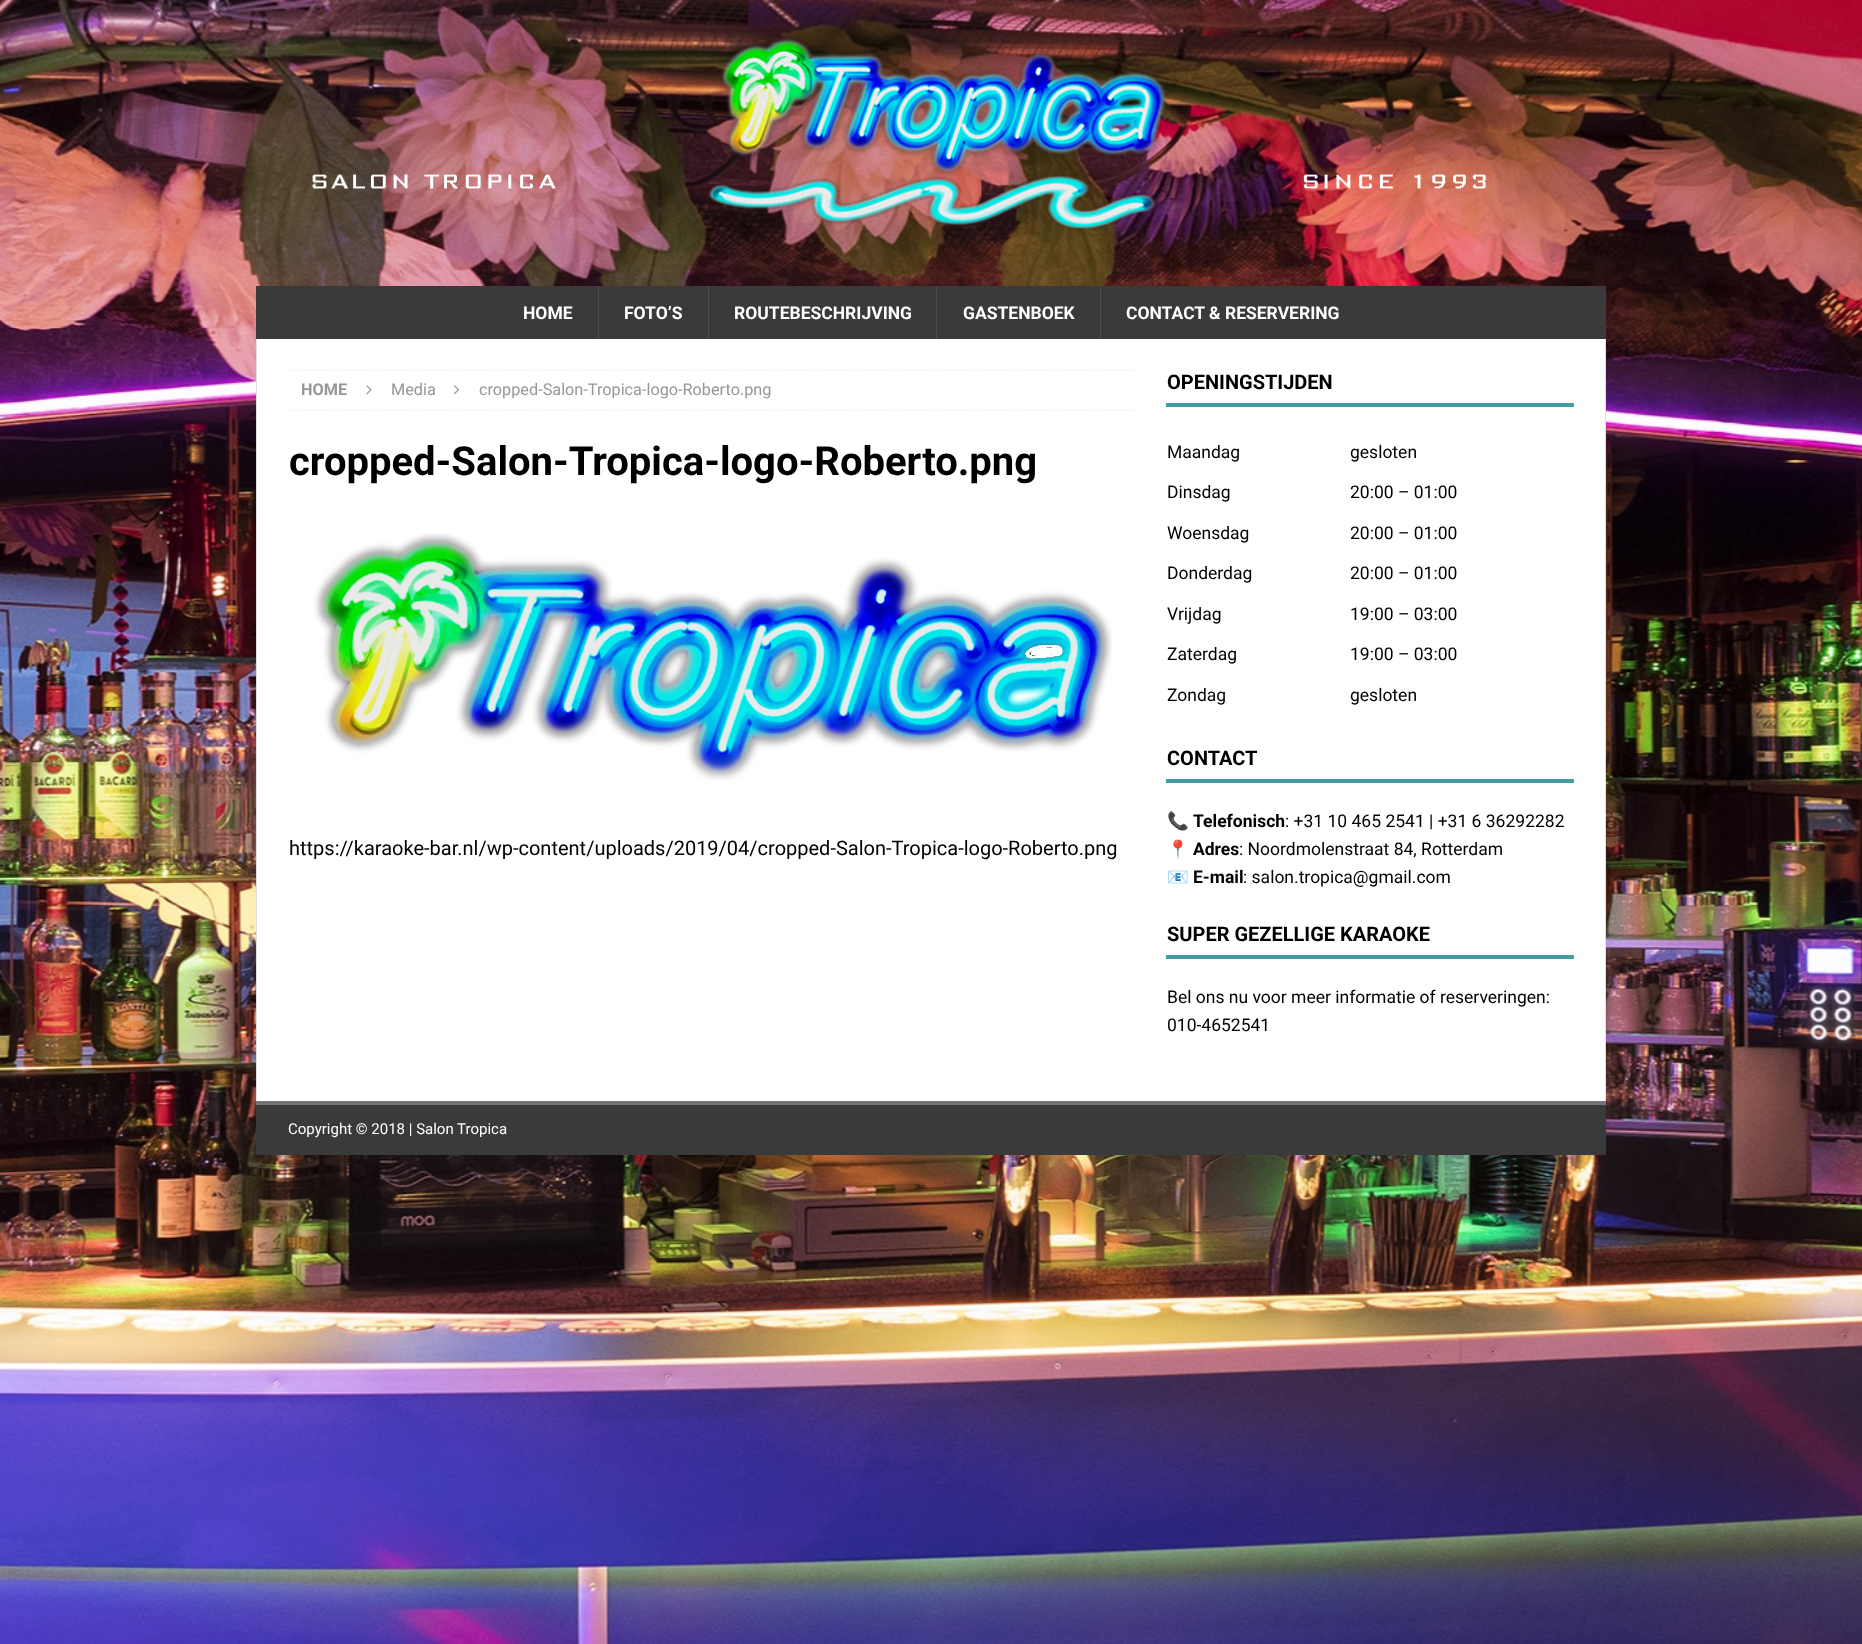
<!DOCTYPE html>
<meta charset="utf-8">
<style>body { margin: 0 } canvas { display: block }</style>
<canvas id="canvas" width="1862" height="1644"></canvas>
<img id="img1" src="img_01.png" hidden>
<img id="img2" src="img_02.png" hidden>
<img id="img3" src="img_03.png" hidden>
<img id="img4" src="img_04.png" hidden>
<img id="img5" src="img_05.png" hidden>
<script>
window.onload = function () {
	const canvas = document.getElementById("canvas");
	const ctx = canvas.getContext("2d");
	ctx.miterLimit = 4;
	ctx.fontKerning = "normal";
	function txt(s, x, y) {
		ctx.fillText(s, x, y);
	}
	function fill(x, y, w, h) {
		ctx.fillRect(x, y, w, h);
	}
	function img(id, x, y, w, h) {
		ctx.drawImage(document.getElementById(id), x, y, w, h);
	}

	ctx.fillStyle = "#FFFFFF";
	fill(0, 0, 1862, 1644);
	img("img1", 0, 0, 1862, 1644);
	img("img2", 312, 37, 1174, 211);
	ctx.fillStyle = "#3A3A3A";
	fill(256, 286, 1350, 53);
	ctx.fillStyle = "#4E4E4E";
	fill(598, 286, 1, 53);
	fill(708, 286, 1, 53);
	fill(936, 286, 1, 53);
	fill(1100, 286, 1, 53);
	ctx.fillStyle = "#FFFFFF";
	fill(257, 339, 1348, 762);
	ctx.fillStyle = "#DFDFDF";
	fill(1605, 339, 1, 762);
	fill(256, 339, 1, 762);
	ctx.save();
	ctx.beginPath();
	ctx.rect(289, 370, 846, 520);
	ctx.clip();
	ctx.beginPath();
	ctx.moveTo(289, 370.5);
	ctx.lineTo(1135, 370.5);
	ctx.strokeStyle = "#EBEBEB";
	ctx.lineWidth = 1.2;
	ctx.setLineDash([1.25, 1.25]);
	ctx.stroke();
	ctx.restore();
	ctx.beginPath();
	ctx.moveTo(289, 410.5);
	ctx.lineTo(1135, 410.5);
	ctx.strokeStyle = "#EBEBEB";
	ctx.lineWidth = 1.2;
	ctx.setLineDash([1.25, 1.25]);
	ctx.stroke();
	img("img3", 366, 385, 6, 10);
	img("img4", 453, 385, 7, 10);
	img("img5", 314, 533, 798, 248);
	ctx.fillStyle = "#429E9E";
	fill(1166, 403, 408, 4);
	fill(1166, 779, 408, 4);
	fill(1166, 955, 408, 4);
	ctx.fillStyle = "#3A3A3A";
	fill(256, 1105, 1350, 50);
	ctx.fillStyle = "#757575";
	fill(256, 1101, 1350, 4);
	ctx.font = "bold 17.5px Roboto";
	ctx.fillStyle = "#FFFFFF";
	txt("HOME", 523, 319);
	txt("FOTO’S", 624, 319);
	txt("ROUTEBESCHRIJVING", 734, 319);
	txt("GASTENBOEK", 963, 319);
	txt("CONTACT & RESERVERING", 1126, 319);
	ctx.font = "bold 16.25px Roboto";
	ctx.fillStyle = "#979797";
	txt("HOME", 301, 395);
	ctx.font = "16.25px Roboto";
	txt("Media", 391, 395);
	txt("cropped-Salon-Tropica-logo-Roberto.png", 479, 395);
	ctx.font = "bold 40px Roboto";
	ctx.fillStyle = "#000000";
	txt("cropped-Salon-Tropica-logo-Roberto.png", 289, 475);
	ctx.font = "20px Roboto";
	txt("https://karaoke-bar.nl/wp-content/uploads/2019/04/cropped-Salon-Tropica-logo-Roberto.png", 289, 855);
	ctx.font = "bold 20px Roboto";
	txt("OPENINGSTIJDEN", 1167, 389);
	ctx.font = "17.5px Roboto";
	txt("Maandag", 1167, 458);
	txt("gesloten", 1350, 458);
	txt("Dinsdag", 1167, 498);
	txt("20:00 – 01:00", 1350, 498);
	txt("Woensdag", 1167, 539);
	txt("20:00 – 01:00", 1350, 539);
	txt("Donderdag", 1167, 579);
	txt("20:00 – 01:00", 1350, 579);
	txt("Vrijdag", 1167, 620);
	txt("19:00 – 03:00", 1350, 620);
	txt("Zaterdag", 1167, 660);
	txt("19:00 – 03:00", 1350, 660);
	txt("Zondag", 1167, 701);
	txt("gesloten", 1350, 701);
	ctx.font = "bold 20px Roboto";
	txt("CONTACT", 1167, 765);
	ctx.font = "17.5px Noto Color Emoji";
	txt("📞", 1167, 827);
	ctx.font = "bold 17.5px Roboto";
	txt("Telefonisch", 1193, 827);
	ctx.font = "17.5px Roboto";
	txt(": +31 10 465 2541 | +31 6 36292282", 1285, 827);
	ctx.font = "17.5px Noto Color Emoji";
	txt("📍", 1167, 855);
	ctx.font = "bold 17.5px Roboto";
	txt("Adres", 1193, 855);
	ctx.font = "17.5px Roboto";
	txt(": Noordmolenstraat 84, Rotterdam", 1239, 855);
	ctx.font = "17.5px Noto Color Emoji";
	txt("📧", 1167, 883);
	ctx.font = "bold 17.5px Roboto";
	txt("E-mail", 1193, 883);
	ctx.font = "17.5px Roboto";
	txt(": salon.tropica@gmail.com", 1243, 883);
	ctx.font = "bold 20px Roboto";
	txt("SUPER GEZELLIGE KARAOKE", 1167, 941);
	ctx.font = "17.5px Roboto";
	txt("Bel ons nu voor meer informatie of reserveringen:", 1167, 1003);
	txt("010-4652541", 1167, 1031);
	ctx.font = "15px Roboto";
	ctx.fillStyle = "#FFFFFF";
	txt("Copyright © 2018 | Salon Tropica", 288, 1134);
};
</script>
